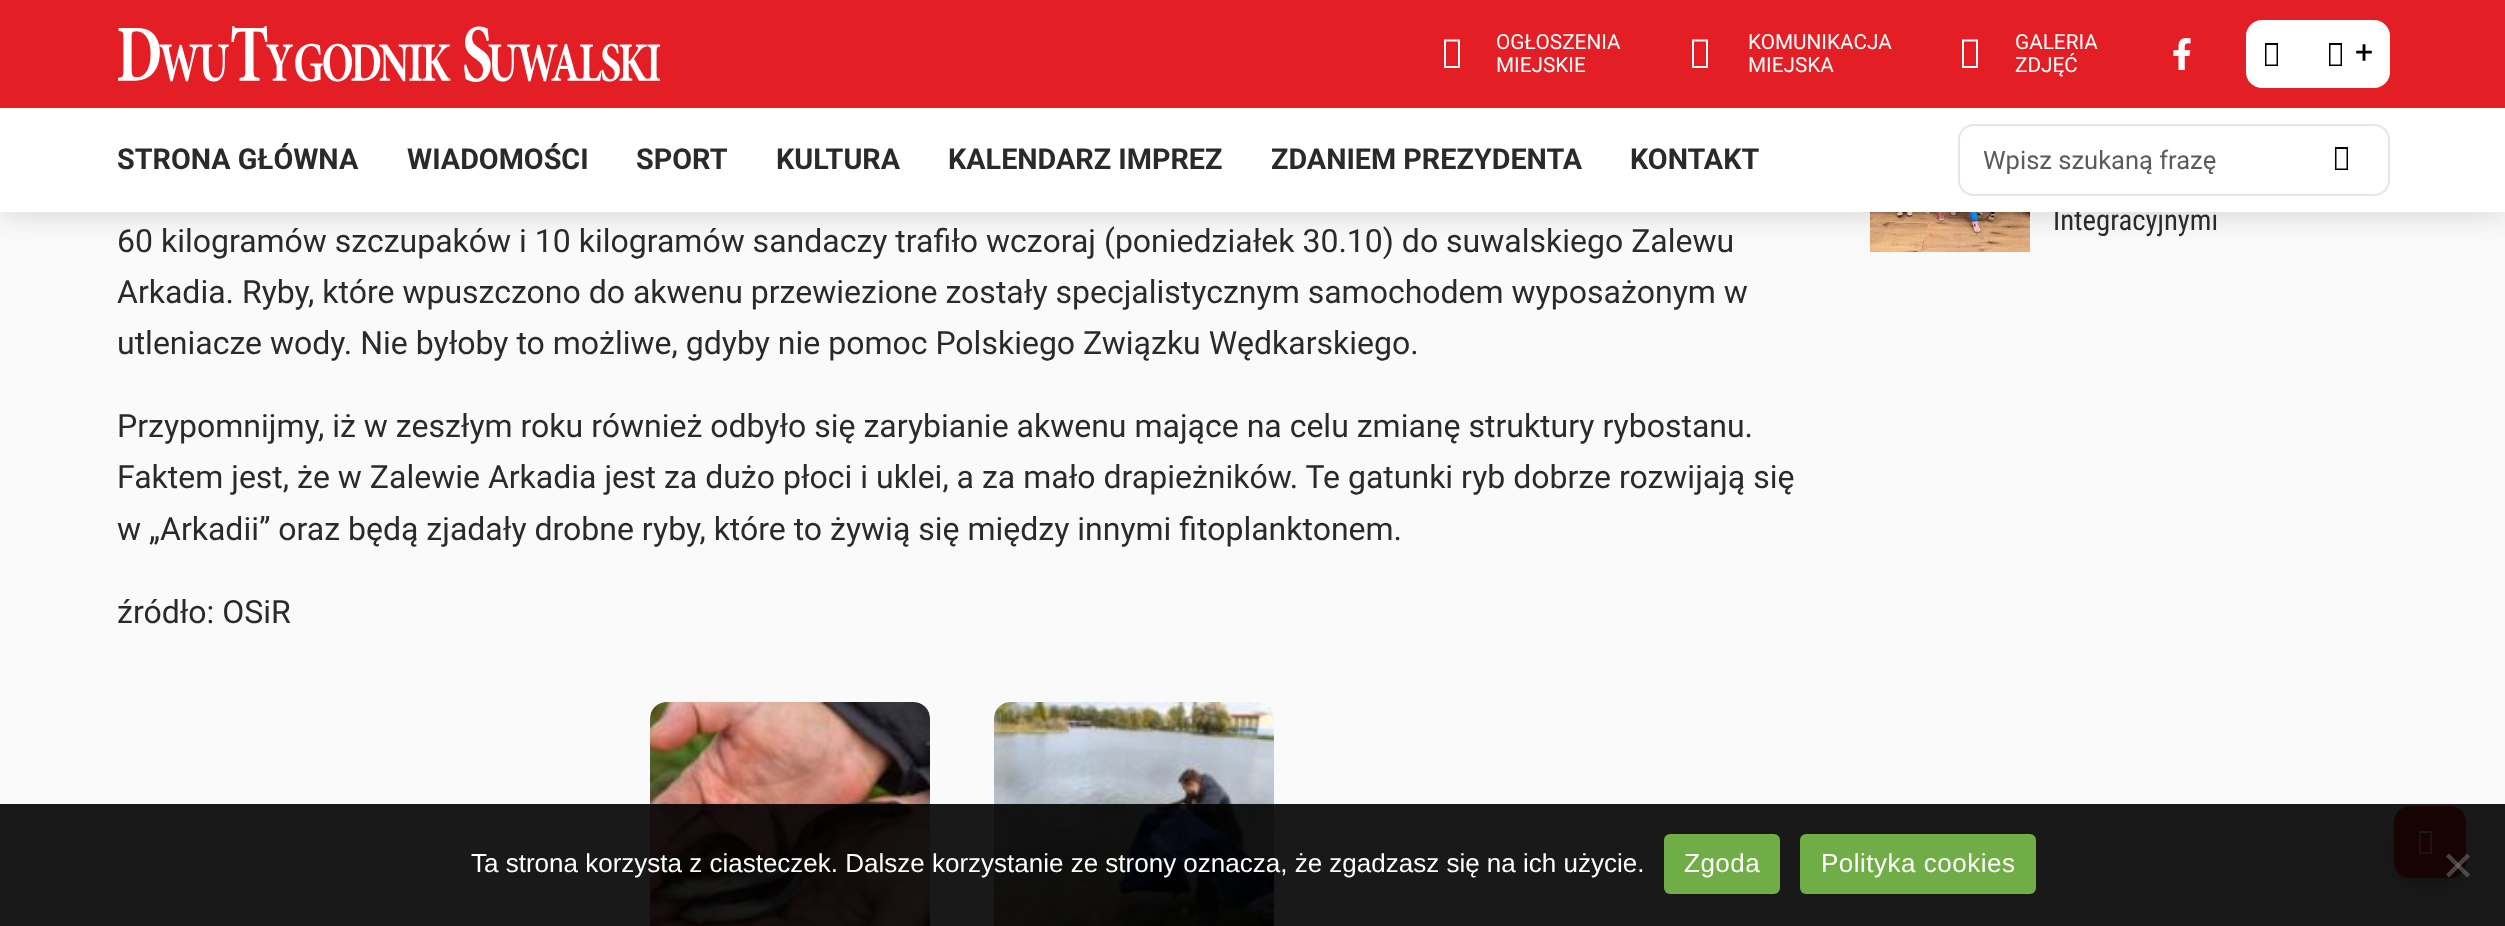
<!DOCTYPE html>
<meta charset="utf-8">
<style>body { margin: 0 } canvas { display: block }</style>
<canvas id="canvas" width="2505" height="926"></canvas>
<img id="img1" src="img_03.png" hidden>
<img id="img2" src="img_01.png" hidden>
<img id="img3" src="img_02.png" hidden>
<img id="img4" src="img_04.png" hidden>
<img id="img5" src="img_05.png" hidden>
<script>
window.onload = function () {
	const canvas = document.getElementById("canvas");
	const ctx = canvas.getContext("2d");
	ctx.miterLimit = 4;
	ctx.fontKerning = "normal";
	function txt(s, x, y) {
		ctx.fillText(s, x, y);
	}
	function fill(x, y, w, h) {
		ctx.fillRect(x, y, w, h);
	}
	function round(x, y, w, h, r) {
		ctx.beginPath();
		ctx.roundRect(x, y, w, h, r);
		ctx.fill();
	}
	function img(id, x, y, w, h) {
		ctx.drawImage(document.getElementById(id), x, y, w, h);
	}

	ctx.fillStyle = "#FAFAFA";
	fill(0, 0, 2505, 926);
	img("img1", 1870, 212, 160, 40);
	ctx.fillStyle = "rgba(43, 42, 41, 0.2)";
	ctx.filter = "blur(16px)";
	ctx.beginPath();
	ctx.rect(0, 0, 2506, 212);
	ctx.fill();
	ctx.filter = "none";
	ctx.fillStyle = "#E31E24";
	fill(0, 0, 2505, 108);
	img("img2", 118, 26, 542, 56);
	ctx.fillStyle = "#FFFFFF";
	ctx.beginPath();
	ctx.moveTo(1444, 68);
	ctx.lineTo(1444, 39.5);
	ctx.lineTo(1460, 39.5);
	ctx.lineTo(1460, 68);
	ctx.closePath();
	ctx.moveTo(1446, 66);
	ctx.lineTo(1458, 66);
	ctx.lineTo(1458, 41.5);
	ctx.lineTo(1446, 41.5);
	ctx.closePath();
	ctx.fill();
	ctx.beginPath();
	ctx.moveTo(1692, 68);
	ctx.lineTo(1692, 39.5);
	ctx.lineTo(1708, 39.5);
	ctx.lineTo(1708, 68);
	ctx.closePath();
	ctx.moveTo(1694, 66);
	ctx.lineTo(1706, 66);
	ctx.lineTo(1706, 41.5);
	ctx.lineTo(1694, 41.5);
	ctx.closePath();
	ctx.fill();
	ctx.beginPath();
	ctx.moveTo(1962, 68);
	ctx.lineTo(1962, 39.5);
	ctx.lineTo(1978, 39.5);
	ctx.lineTo(1978, 68);
	ctx.closePath();
	ctx.moveTo(1964, 66);
	ctx.lineTo(1976, 66);
	ctx.lineTo(1976, 41.5);
	ctx.lineTo(1964, 41.5);
	ctx.closePath();
	ctx.fill();
	img("img3", 2173, 38, 18, 32);
	round(2246, 20, 144, 68, 16);
	ctx.fillStyle = "#000000";
	ctx.beginPath();
	ctx.moveTo(2265, 66);
	ctx.lineTo(2265, 43);
	ctx.lineTo(2278, 43);
	ctx.lineTo(2278, 66);
	ctx.closePath();
	ctx.moveTo(2266.5, 64.5);
	ctx.lineTo(2276.5, 64.5);
	ctx.lineTo(2276.5, 45);
	ctx.lineTo(2266.5, 45);
	ctx.closePath();
	ctx.fill();
	ctx.beginPath();
	ctx.moveTo(2329, 66);
	ctx.lineTo(2329, 43);
	ctx.lineTo(2342, 43);
	ctx.lineTo(2342, 66);
	ctx.closePath();
	ctx.moveTo(2330.5, 64.5);
	ctx.lineTo(2340.5, 64.5);
	ctx.lineTo(2340.5, 45);
	ctx.lineTo(2330.5, 45);
	ctx.closePath();
	ctx.fill();
	img("img4", 650, 702, 280, 224);
	img("img5", 994, 702, 280, 224);
	ctx.fillStyle = "rgba(0, 0, 0, 0.2)";
	ctx.filter = "blur(8px)";
	ctx.beginPath();
	ctx.roundRect(2394, 814, 72, 72, 16);
	ctx.fill();
	ctx.filter = "none";
	ctx.fillStyle = "#E31E24";
	round(2394, 806, 72, 72, 16);
	ctx.fillStyle = "#FFFFFF";
	ctx.beginPath();
	ctx.moveTo(2419, 854);
	ctx.lineTo(2419, 831);
	ctx.lineTo(2432, 831);
	ctx.lineTo(2432, 854);
	ctx.closePath();
	ctx.moveTo(2420.5, 852.5);
	ctx.lineTo(2430.5, 852.5);
	ctx.lineTo(2430.5, 833);
	ctx.lineTo(2420.5, 833);
	ctx.closePath();
	ctx.fill();
	ctx.fillStyle = "rgba(0, 0, 0, 0.9)";
	fill(0, 804, 2505, 122);
	ctx.fillStyle = "#70AD47";
	round(1664, 834, 116, 60, 6);
	round(1800, 834, 236, 60, 6);
	ctx.fillStyle = "rgba(128, 128, 128, 0.5)";
	ctx.beginPath();
	ctx.moveTo(2467, 853.5);
	ctx.lineTo(2470, 856.5);
	ctx.lineTo(2449, 877.5);
	ctx.lineTo(2446, 874.5);
	ctx.closePath();
	ctx.fill();
	ctx.beginPath();
	ctx.moveTo(2446, 856.5);
	ctx.lineTo(2449, 853.5);
	ctx.lineTo(2470, 874.5);
	ctx.lineTo(2467, 877.5);
	ctx.closePath();
	ctx.fill();
	ctx.font = "20.75px Roboto";
	ctx.fillStyle = "#FFFFFF";
	txt("OGŁOSZENIA", 1496, 49);
	txt("MIEJSKIE", 1496, 72);
	txt("KOMUNIKACJA", 1748, 49);
	txt("MIEJSKA", 1748, 72);
	txt("GALERIA", 2015, 49);
	txt("ZDJĘĆ", 2015, 72);
	ctx.font = "32px Roboto";
	ctx.fillStyle = "#000000";
	txt("+", 2355, 63);
	ctx.font = "28.75px Roboto Condensed";
	ctx.fillStyle = "#2B2A29";
	txt("Integracyjnymi", 2053, 230);
	ctx.fillStyle = "#FFFFFF";
	fill(0, 108, 2505, 104);
	ctx.fillStyle = "#E6E6E6";
	ctx.beginPath();
	ctx.moveTo(2308, 124);
	ctx.lineTo(2374, 124);
	ctx.bezierCurveTo(2383, 124, 2390, 131, 2390, 140);
	ctx.lineTo(2390, 180);
	ctx.bezierCurveTo(2390, 189, 2383, 196, 2374, 196);
	ctx.lineTo(2308, 196);
	ctx.closePath();
	ctx.moveTo(2308, 126);
	ctx.lineTo(2374, 126);
	ctx.bezierCurveTo(2382, 126, 2388, 132, 2388, 140);
	ctx.lineTo(2388, 180);
	ctx.bezierCurveTo(2388, 188, 2382, 194, 2374, 194);
	ctx.lineTo(2308, 194);
	ctx.closePath();
	ctx.fill("evenodd");
	ctx.beginPath();
	ctx.moveTo(1974, 124);
	ctx.lineTo(2310, 124);
	ctx.lineTo(2310, 196);
	ctx.lineTo(1974, 196);
	ctx.bezierCurveTo(1965, 196, 1958, 189, 1958, 180);
	ctx.lineTo(1958, 140);
	ctx.bezierCurveTo(1958, 131, 1965, 124, 1974, 124);
	ctx.closePath();
	ctx.moveTo(1974, 126);
	ctx.lineTo(2310, 126);
	ctx.lineTo(2310, 194);
	ctx.lineTo(1974, 194);
	ctx.bezierCurveTo(1966, 194, 1960, 188, 1960, 180);
	ctx.lineTo(1960, 140);
	ctx.bezierCurveTo(1960, 132, 1966, 126, 1974, 126);
	ctx.closePath();
	ctx.fill("evenodd");
	ctx.save();
	ctx.beginPath();
	ctx.rect(1984, 144, 276, 30);
	ctx.clip();
	ctx.font = "25.5px Roboto";
	ctx.fillStyle = "#595C5F";
	txt("Wpisz szukaną frazę", 1983, 169);
	ctx.restore();
	ctx.fillStyle = "#000000";
	ctx.beginPath();
	ctx.moveTo(2335, 170);
	ctx.lineTo(2335, 147);
	ctx.lineTo(2348, 147);
	ctx.lineTo(2348, 170);
	ctx.closePath();
	ctx.moveTo(2336.5, 168.5);
	ctx.lineTo(2346.5, 168.5);
	ctx.lineTo(2346.5, 149);
	ctx.lineTo(2336.5, 149);
	ctx.closePath();
	ctx.fill();
	ctx.font = "bold 28.75px Roboto";
	ctx.fillStyle = "#2B2A29";
	txt("KONTAKT", 1630, 169);
	txt("ZDANIEM PREZYDENTA", 1271, 169);
	txt("KALENDARZ IMPREZ", 948, 169);
	txt("KULTURA", 776, 169);
	txt("SPORT", 636, 169);
	txt("WIADOMOŚCI", 407, 169);
	txt("STRONA GŁÓWNA", 117, 169);
	ctx.font = "32px Roboto";
	txt("60 kilogramów szczupaków i 10 kilogramów sandaczy trafiło wczoraj (poniedziałek 30.10) do suwalskiego Zalewu", 117, 252);
	txt("Arkadia. Ryby, które wpuszczono do akwenu przewiezione zostały specjalistycznym samochodem wyposażonym w", 117, 303);
	txt("utleniacze wody. Nie byłoby to możliwe, gdyby nie pomoc Polskiego Związku Wędkarskiego.", 117, 354);
	txt("Przypomnijmy, iż w zeszłym roku również odbyło się zarybianie akwenu mające na celu zmianę struktury rybostanu.", 117, 437);
	txt("Faktem jest, że w Zalewie Arkadia jest za dużo płoci i uklei, a za mało drapieżników. Te gatunki ryb dobrze rozwijają się", 117, 488);
	txt("w „Arkadii” oraz będą zjadały drobne ryby, które to żywią się między innymi fitoplanktonem.", 117, 540);
	txt("źródło: OSiR", 117, 623);
	ctx.font = "26px Liberation Sans";
	ctx.fillStyle = "#FFFFFF";
	txt("Ta strona korzysta z ciasteczek. Dalsze korzystanie ze strony oznacza, że zgadzasz się na ich użycie.", 471, 872);
	ctx.letterSpacing = "0.5px";
	txt("Zgoda", 1684, 872);
	txt("Polityka cookies", 1821, 872);
};
</script>
